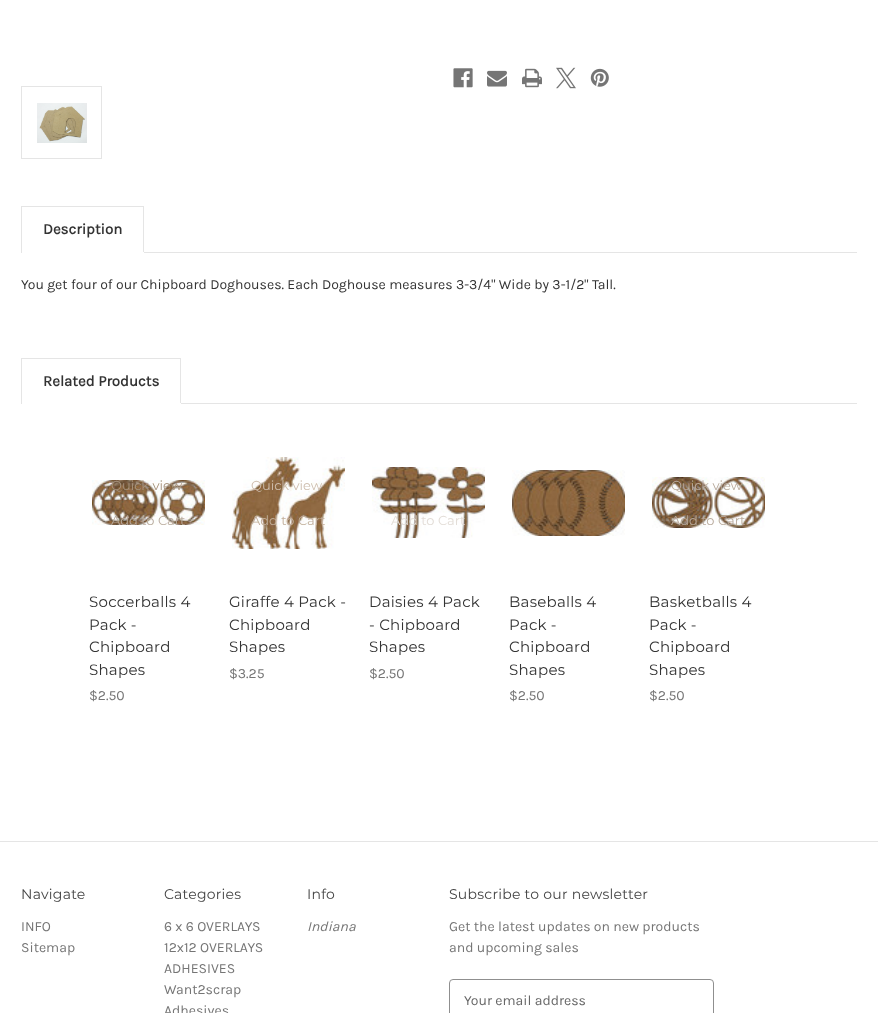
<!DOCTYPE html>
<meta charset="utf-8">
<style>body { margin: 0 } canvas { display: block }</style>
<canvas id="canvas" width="878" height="1013"></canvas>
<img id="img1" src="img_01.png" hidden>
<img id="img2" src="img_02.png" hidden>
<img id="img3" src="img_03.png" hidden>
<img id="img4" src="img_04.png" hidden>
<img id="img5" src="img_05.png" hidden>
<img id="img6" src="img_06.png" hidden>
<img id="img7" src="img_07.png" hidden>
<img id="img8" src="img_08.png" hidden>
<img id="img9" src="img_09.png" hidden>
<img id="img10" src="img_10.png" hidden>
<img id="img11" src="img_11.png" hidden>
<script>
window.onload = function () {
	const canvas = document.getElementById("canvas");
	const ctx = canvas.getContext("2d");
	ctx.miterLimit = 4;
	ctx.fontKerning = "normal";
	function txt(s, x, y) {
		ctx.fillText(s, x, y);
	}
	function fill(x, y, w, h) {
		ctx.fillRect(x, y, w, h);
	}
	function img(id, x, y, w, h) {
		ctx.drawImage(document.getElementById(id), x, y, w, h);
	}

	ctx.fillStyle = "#FFFFFF";
	fill(0, 0, 878, 1013);
	img("img1", 453, 68, 20, 20);
	img("img2", 487, 70, 20, 17);
	img("img3", 522, 68, 20, 20);
	img("img4", 556, 67, 20, 22);
	img("img5", 590, 68, 19, 19);
	ctx.strokeStyle = "#E5E5E5";
	ctx.strokeRect(21.5, 86.5, 80, 72);
	img("img6", 37, 103, 50, 40);
	ctx.fillStyle = "#E5E5E5";
	fill(144, 252, 713, 1);
	fill(21, 206, 123, 1);
	fill(143, 206, 1, 47);
	ctx.fillStyle = "#FFFFFF";
	fill(143, 252, 1, 1);
	ctx.fillStyle = "#E5E5E5";
	fill(21, 206, 1, 47);
	fill(181, 403, 676, 1);
	fill(21, 358, 160, 1);
	fill(180, 358, 1, 46);
	ctx.fillStyle = "#FFFFFF";
	fill(180, 403, 1, 1);
	ctx.fillStyle = "#E5E5E5";
	fill(21, 358, 1, 46);
	img("img7", 92, 480, 113, 45);
	img("img8", 232, 457, 113, 92);
	img("img9", 372, 467, 113, 71);
	img("img10", 512, 470, 113, 66);
	img("img11", 652, 477, 113, 51);
	fill(0, 841, 878, 1);
	ctx.beginPath();
	ctx.roundRect(449.5, 979.5, 264, 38, 3.5);
	ctx.strokeStyle = "#8F8F8F";
	ctx.stroke();
	ctx.font = "bold 15px Karla";
	ctx.fillStyle = "#333333";
	txt("Description", 43, 234);
	ctx.font = "14px Karla";
	txt("You get four of our Chipboard Doghouses. Each Doghouse measures 3-3/4\" Wide by 3-1/2\" Tall.", 21, 289);
	ctx.font = "bold 15px Karla";
	txt("Related Products", 43, 386);
	ctx.font = "13px Montserrat";
	ctx.fillStyle = "#A6927C";
	txt("Quick view", 111, 490);
	ctx.fillStyle = "#B8AA9C";
	txt("Add to Cart", 111, 525);
	ctx.letterSpacing = "0.25px";
	ctx.font = "15px Montserrat";
	ctx.fillStyle = "#333333";
	txt("Soccerballs 4", 89, 607);
	txt("Pack -", 89, 630);
	txt("Chipboard", 89, 652);
	txt("Shapes", 89, 675);
	ctx.letterSpacing = "0px";
	ctx.font = "14px Karla";
	ctx.fillStyle = "#757575";
	txt("$2.50", 89, 700);
	ctx.font = "13px Montserrat";
	ctx.fillStyle = "#CEBEAE";
	txt("Quick view", 251, 490);
	ctx.fillStyle = "#C1AE9A";
	txt("Add to Cart", 251, 525);
	ctx.letterSpacing = "0.25px";
	ctx.font = "15px Montserrat";
	ctx.fillStyle = "#333333";
	txt("Giraffe 4 Pack -", 229, 607);
	txt("Chipboard", 229, 630);
	txt("Shapes", 229, 652);
	ctx.letterSpacing = "0px";
	ctx.font = "14px Karla";
	ctx.fillStyle = "#757575";
	txt("$3.25", 229, 678);
	ctx.font = "13px Montserrat";
	ctx.fillStyle = "#E2DCD6";
	txt("Add to Cart", 391, 525);
	ctx.letterSpacing = "0.25px";
	ctx.font = "15px Montserrat";
	ctx.fillStyle = "#333333";
	txt("Daisies 4 Pack", 369, 607);
	txt("- Chipboard", 369, 630);
	txt("Shapes", 369, 652);
	ctx.letterSpacing = "0px";
	ctx.font = "14px Karla";
	ctx.fillStyle = "#757575";
	txt("$2.50", 369, 678);
	ctx.letterSpacing = "0.25px";
	ctx.font = "15px Montserrat";
	ctx.fillStyle = "#333333";
	txt("Baseballs 4", 509, 607);
	txt("Pack -", 509, 630);
	txt("Chipboard", 509, 652);
	txt("Shapes", 509, 675);
	ctx.letterSpacing = "0px";
	ctx.font = "14px Karla";
	ctx.fillStyle = "#757575";
	txt("$2.50", 509, 700);
	ctx.font = "13px Montserrat";
	ctx.fillStyle = "#B8AA9C";
	txt("Quick view", 671, 490);
	txt("Add to Cart", 671, 525);
	ctx.letterSpacing = "0.25px";
	ctx.font = "15px Montserrat";
	ctx.fillStyle = "#333333";
	txt("Basketballs 4", 649, 607);
	txt("Pack -", 649, 630);
	txt("Chipboard", 649, 652);
	txt("Shapes", 649, 675);
	ctx.letterSpacing = "0px";
	ctx.font = "14px Karla";
	ctx.fillStyle = "#757575";
	txt("$2.50", 649, 700);
	ctx.letterSpacing = "0.25px";
	ctx.font = "14px Montserrat";
	ctx.fillStyle = "#444444";
	txt("Navigate", 21, 899);
	ctx.letterSpacing = "0px";
	ctx.font = "14px Karla";
	ctx.fillStyle = "#757575";
	txt("INFO", 21, 931);
	txt("Sitemap", 21, 952);
	ctx.letterSpacing = "0.25px";
	ctx.font = "14px Montserrat";
	ctx.fillStyle = "#444444";
	txt("Categories", 164, 899);
	ctx.letterSpacing = "0px";
	ctx.font = "14px Karla";
	ctx.fillStyle = "#757575";
	txt("6 x 6 OVERLAYS", 164, 931);
	txt("12x12 OVERLAYS", 164, 952);
	txt("ADHESIVES", 164, 973);
	txt("Want2scrap", 164, 994);
	txt("Adhesives", 164, 1015);
	ctx.letterSpacing = "0.25px";
	ctx.font = "14px Montserrat";
	ctx.fillStyle = "#444444";
	txt("Info", 307, 899);
	ctx.letterSpacing = "0px";
	ctx.font = "italic 14px Karla";
	ctx.fillStyle = "#757575";
	txt("Indiana", 307, 931);
	ctx.letterSpacing = "0.25px";
	ctx.font = "14px Montserrat";
	ctx.fillStyle = "#444444";
	txt("Subscribe to our newsletter", 449, 899);
	ctx.letterSpacing = "0px";
	ctx.font = "14px Karla";
	ctx.fillStyle = "#757575";
	txt("Get the latest updates on new products", 449, 931);
	txt("and upcoming sales", 449, 952);
	ctx.fillStyle = "#666666";
	txt("Your email address", 464, 1005);
};
</script>
